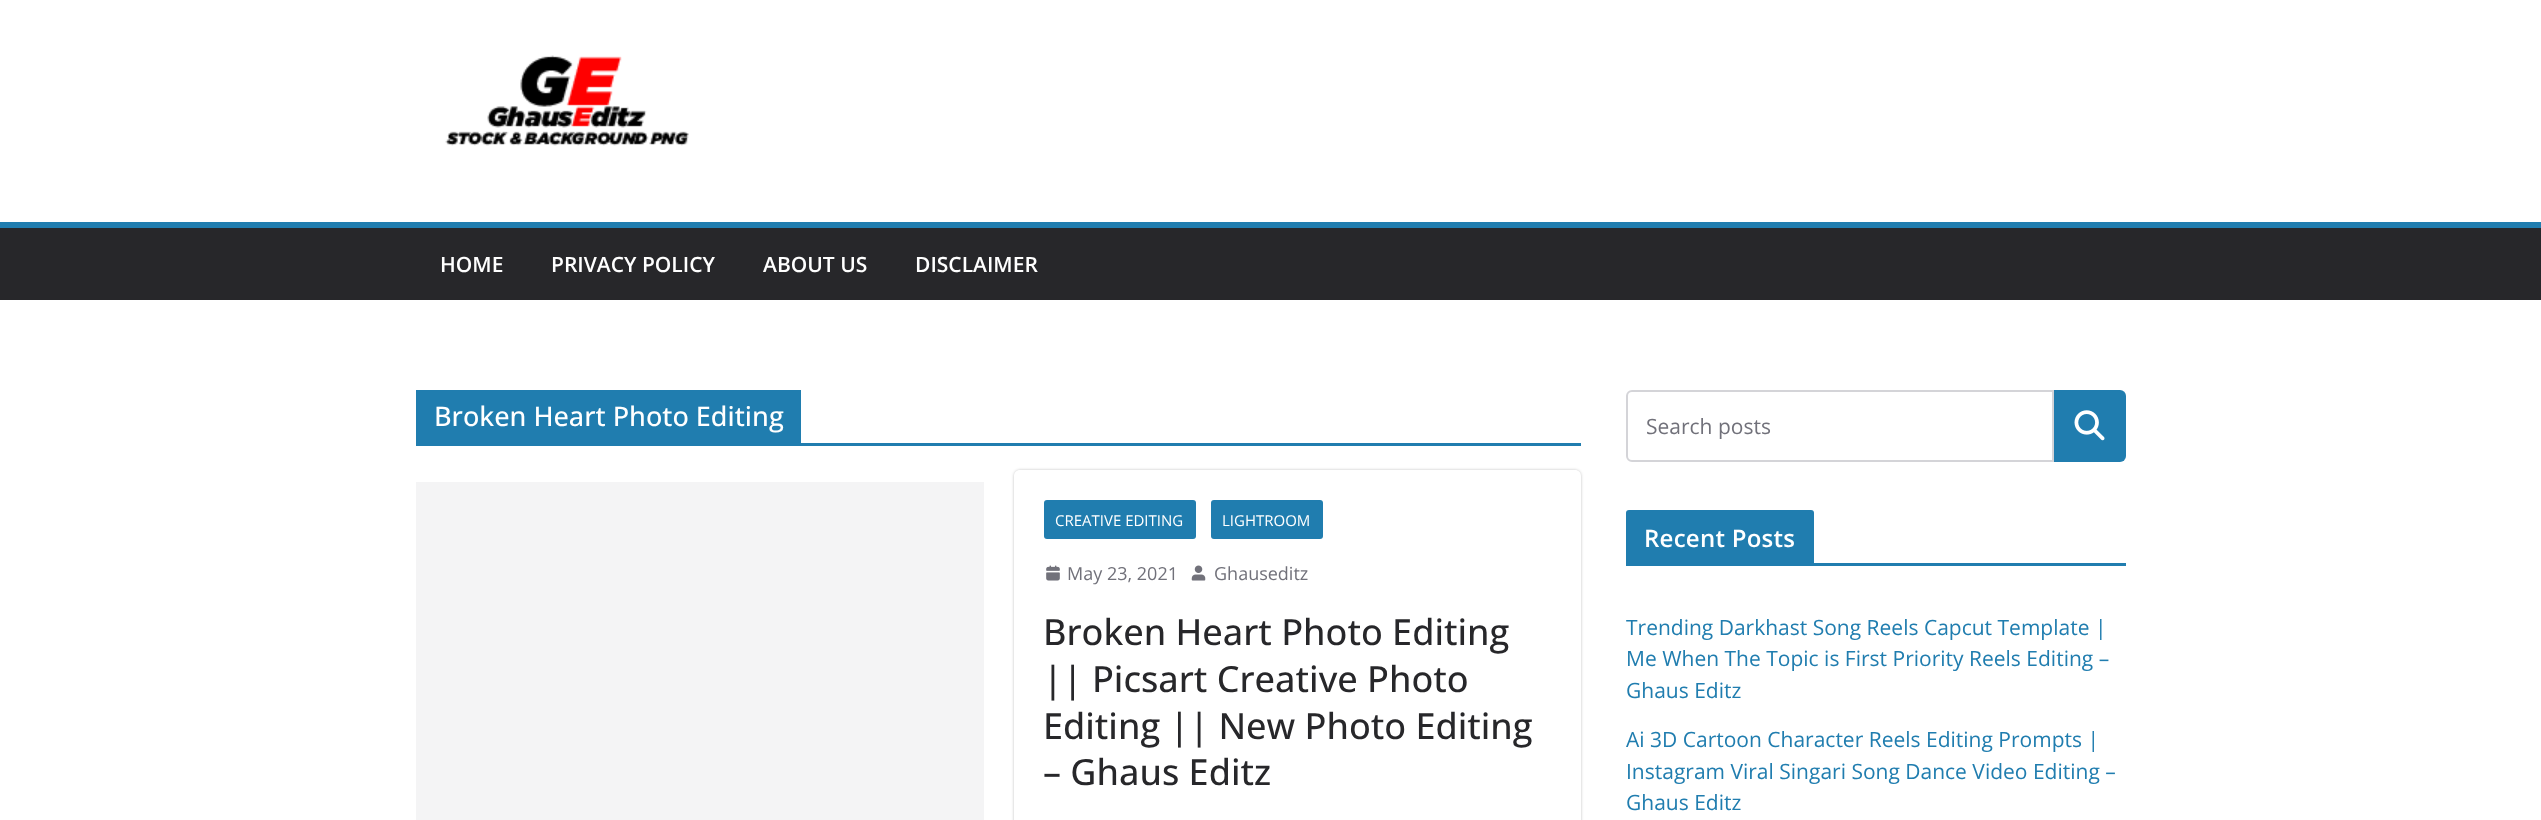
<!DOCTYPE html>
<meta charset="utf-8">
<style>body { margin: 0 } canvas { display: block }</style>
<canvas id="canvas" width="2541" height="820"></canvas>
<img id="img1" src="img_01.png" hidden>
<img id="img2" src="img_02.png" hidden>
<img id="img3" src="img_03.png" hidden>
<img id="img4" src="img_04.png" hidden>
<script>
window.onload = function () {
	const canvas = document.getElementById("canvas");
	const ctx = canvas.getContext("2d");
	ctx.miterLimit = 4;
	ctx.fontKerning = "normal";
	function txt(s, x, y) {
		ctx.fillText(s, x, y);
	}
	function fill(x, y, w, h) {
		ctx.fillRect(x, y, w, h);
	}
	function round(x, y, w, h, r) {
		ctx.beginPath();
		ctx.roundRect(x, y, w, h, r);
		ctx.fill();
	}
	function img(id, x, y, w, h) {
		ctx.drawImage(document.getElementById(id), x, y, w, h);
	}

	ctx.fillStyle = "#FFFFFF";
	fill(0, 0, 2541, 820);
	img("img1", 445, 55, 244, 91);
	ctx.fillStyle = "#27272A";
	fill(0, 228, 2541, 72);
	ctx.fillStyle = "#207DAF";
	fill(0, 222, 2541, 6);
	fill(416, 443, 1165, 3);
	fill(416, 390, 385, 53);
	ctx.fillStyle = "#F4F4F5";
	fill(416, 482, 568, 338);
	ctx.save();
	ctx.beginPath();
	ctx.moveTo(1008, 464);
	ctx.lineTo(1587, 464);
	ctx.lineTo(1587, 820);
	ctx.lineTo(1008, 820);
	ctx.closePath();
	ctx.moveTo(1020, 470);
	ctx.lineTo(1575, 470);
	ctx.bezierCurveTo(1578.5, 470, 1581, 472.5, 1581, 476);
	ctx.lineTo(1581, 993);
	ctx.bezierCurveTo(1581, 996.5, 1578.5, 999, 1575, 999);
	ctx.lineTo(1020, 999);
	ctx.bezierCurveTo(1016.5, 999, 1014, 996.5, 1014, 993);
	ctx.lineTo(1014, 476);
	ctx.bezierCurveTo(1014, 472.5, 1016.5, 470, 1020, 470);
	ctx.closePath();
	ctx.clip("evenodd");
	ctx.fillStyle = "rgba(0, 0, 0, 0.24)";
	ctx.filter = "blur(1.5px)";
	ctx.beginPath();
	ctx.roundRect(1014, 470, 567, 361, 6);
	ctx.fill();
	ctx.filter = "none";
	ctx.restore();
	ctx.fillStyle = "#207DAF";
	round(1044, 500, 152, 39, 3);
	round(1211, 500, 112, 39, 3);
	img("img2", 1046, 565, 14, 16);
	img("img3", 1191, 565, 15, 16);
	ctx.beginPath();
	ctx.roundRect(1627, 391, 426, 70, [5, 0, 0, 5]);
	ctx.strokeStyle = "#D4D4D8";
	ctx.lineWidth = 2;
	ctx.stroke();
	ctx.beginPath();
	ctx.roundRect(2054, 390, 72, 72, [0, 6, 6, 0]);
	ctx.fill();
	img("img4", 2074, 410, 31, 31);
	fill(1626, 563, 500, 3);
	ctx.beginPath();
	ctx.roundRect(1626, 510, 188, 53, [3, 3, 0, 0]);
	ctx.fill();
	ctx.font = "600 21px Open Sans";
	ctx.fillStyle = "#FFFFFF";
	txt("HOME", 440, 272);
	txt("PRIVACY POLICY", 551, 272);
	txt("ABOUT US", 763, 272);
	txt("DISCLAIMER", 915, 272);
	ctx.font = "500 27px Open Sans";
	txt("Broken Heart Photo Editing", 434, 426);
	ctx.font = "15px Open Sans";
	txt("CREATIVE EDITING", 1055, 526);
	txt("LIGHTROOM", 1222, 526);
	ctx.font = "18px Open Sans";
	ctx.fillStyle = "#71717A";
	txt("May 23, 2021", 1067, 580);
	txt("Ghauseditz", 1214, 580);
	ctx.font = "500 36px Open Sans";
	ctx.fillStyle = "#27272A";
	txt("Broken Heart Photo Editing", 1043, 645);
	txt("|| Picsart Creative Photo", 1043, 692);
	txt("Editing || New Photo Editing", 1043, 739);
	txt("– Ghaus Editz", 1043, 785);
	ctx.font = "21px Open Sans";
	ctx.fillStyle = "#71717A";
	txt("Search posts", 1646, 434);
	ctx.letterSpacing = "0.25px";
	ctx.font = "600 24px Open Sans";
	ctx.fillStyle = "#FFFFFF";
	txt("Recent Posts", 1644, 547);
	ctx.letterSpacing = "0px";
	ctx.font = "21px Open Sans";
	ctx.fillStyle = "#207DAF";
	txt("Trending Darkhast Song Reels Capcut Template |", 1626, 635);
	txt("Me When The Topic is First Priority Reels Editing –", 1626, 666);
	txt("Ghaus Editz", 1626, 698);
	txt("Ai 3D Cartoon Character Reels Editing Prompts |", 1626, 747);
	txt("Instagram Viral Singari Song Dance Video Editing –", 1626, 779);
	txt("Ghaus Editz", 1626, 810);
};
</script>
